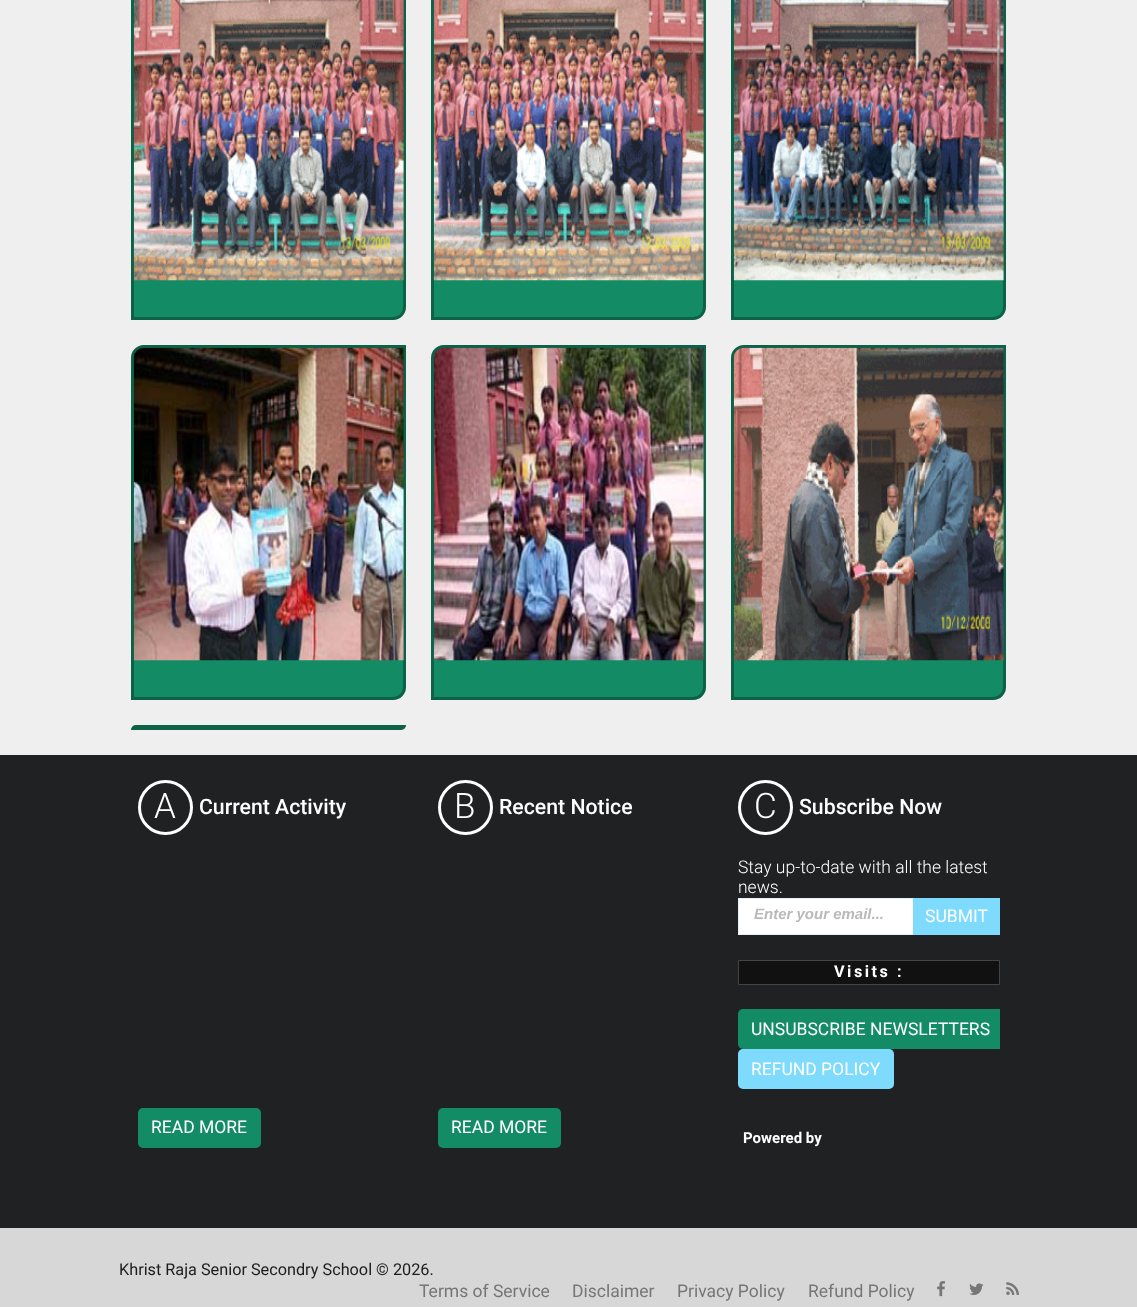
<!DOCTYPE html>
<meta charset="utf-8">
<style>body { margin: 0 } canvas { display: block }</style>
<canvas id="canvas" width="1137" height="1307"></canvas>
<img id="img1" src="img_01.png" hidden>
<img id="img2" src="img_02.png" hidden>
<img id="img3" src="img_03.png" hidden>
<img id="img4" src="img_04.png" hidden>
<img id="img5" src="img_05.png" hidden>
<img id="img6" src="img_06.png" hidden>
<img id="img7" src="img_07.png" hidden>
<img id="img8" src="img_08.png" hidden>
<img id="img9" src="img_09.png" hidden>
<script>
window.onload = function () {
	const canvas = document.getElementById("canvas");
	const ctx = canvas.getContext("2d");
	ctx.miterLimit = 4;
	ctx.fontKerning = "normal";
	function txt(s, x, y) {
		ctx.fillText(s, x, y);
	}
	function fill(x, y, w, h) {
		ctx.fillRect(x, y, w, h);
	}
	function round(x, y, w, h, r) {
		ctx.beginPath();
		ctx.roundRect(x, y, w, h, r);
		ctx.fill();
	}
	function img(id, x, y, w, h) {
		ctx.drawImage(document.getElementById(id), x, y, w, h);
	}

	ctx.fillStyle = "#D7D7D7";
	fill(0, 0, 1137, 1307);
	ctx.fillStyle = "#EFEFEF";
	fill(0, 0, 1137, 755);
	ctx.fillStyle = "#138C66";
	ctx.beginPath();
	ctx.moveTo(144, -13);
	ctx.lineTo(406, -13);
	ctx.lineTo(406, 307);
	ctx.bezierCurveTo(406, 314, 400, 320, 393, 320);
	ctx.lineTo(131, 320);
	ctx.lineTo(131, 0);
	ctx.bezierCurveTo(131, -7, 137, -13, 144, -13);
	ctx.closePath();
	ctx.fill();
	ctx.beginPath();
	ctx.moveTo(144, -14.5);
	ctx.lineTo(404.5, -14.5);
	ctx.lineTo(404.5, 307);
	ctx.bezierCurveTo(404.5, 313.5, 399.5, 318.5, 393, 318.5);
	ctx.lineTo(132.5, 318.5);
	ctx.lineTo(132.5, -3);
	ctx.bezierCurveTo(132.5, -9.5, 137.5, -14.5, 144, -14.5);
	ctx.closePath();
	ctx.strokeStyle = "rgba(0, 0, 0, 0.3)";
	ctx.lineWidth = 3;
	ctx.stroke();
	img("img1", 133, 0, 271, 281);
	ctx.beginPath();
	ctx.moveTo(444, -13);
	ctx.lineTo(706, -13);
	ctx.lineTo(706, 307);
	ctx.bezierCurveTo(706, 314, 700, 320, 693, 320);
	ctx.lineTo(431, 320);
	ctx.lineTo(431, 0);
	ctx.bezierCurveTo(431, -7, 437, -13, 444, -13);
	ctx.closePath();
	ctx.fill();
	ctx.beginPath();
	ctx.moveTo(444, -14.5);
	ctx.lineTo(704.5, -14.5);
	ctx.lineTo(704.5, 307);
	ctx.bezierCurveTo(704.5, 313.5, 699.5, 318.5, 693, 318.5);
	ctx.lineTo(432.5, 318.5);
	ctx.lineTo(432.5, -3);
	ctx.bezierCurveTo(432.5, -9.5, 437.5, -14.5, 444, -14.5);
	ctx.closePath();
	ctx.stroke();
	img("img2", 433, 0, 271, 281);
	ctx.beginPath();
	ctx.moveTo(744, -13);
	ctx.lineTo(1006, -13);
	ctx.lineTo(1006, 307);
	ctx.bezierCurveTo(1006, 314, 1000, 320, 993, 320);
	ctx.lineTo(731, 320);
	ctx.lineTo(731, 0);
	ctx.bezierCurveTo(731, -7, 737, -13, 744, -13);
	ctx.closePath();
	ctx.fill();
	ctx.beginPath();
	ctx.moveTo(744, -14.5);
	ctx.lineTo(1004.5, -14.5);
	ctx.lineTo(1004.5, 307);
	ctx.bezierCurveTo(1004.5, 313.5, 999.5, 318.5, 993, 318.5);
	ctx.lineTo(732.5, 318.5);
	ctx.lineTo(732.5, -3);
	ctx.bezierCurveTo(732.5, -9.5, 737.5, -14.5, 744, -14.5);
	ctx.closePath();
	ctx.stroke();
	img("img3", 733, 0, 271, 281);
	ctx.beginPath();
	ctx.roundRect(131, 345, 275, 355, [13, 0, 13, 0]);
	ctx.fill();
	ctx.beginPath();
	ctx.roundRect(132.5, 346.5, 272, 352, [11.5, 0, 11.5, 0]);
	ctx.stroke();
	img("img4", 133, 347, 271, 314);
	ctx.beginPath();
	ctx.roundRect(431, 345, 275, 355, [13, 0, 13, 0]);
	ctx.fill();
	ctx.beginPath();
	ctx.roundRect(432.5, 346.5, 272, 352, [11.5, 0, 11.5, 0]);
	ctx.stroke();
	img("img5", 433, 347, 271, 314);
	ctx.beginPath();
	ctx.roundRect(731, 345, 275, 355, [13, 0, 13, 0]);
	ctx.fill();
	ctx.beginPath();
	ctx.roundRect(732.5, 346.5, 272, 352, [11.5, 0, 11.5, 0]);
	ctx.stroke();
	img("img6", 733, 347, 271, 314);
	ctx.beginPath();
	ctx.roundRect(131, 725, 275, 5, [5, 0, 5, 0]);
	ctx.fill();
	ctx.fillStyle = "rgba(0, 0, 0, 0.3)";
	ctx.beginPath();
	ctx.roundRect(131, 725, 275, 5, [5, 0, 5, 0]);
	ctx.fill();
	ctx.fillStyle = "#1F2123";
	fill(0, 755, 1137, 473);
	ctx.beginPath();
	ctx.arc(165.5, 807.5, 26, 0, Math.PI * 2);
	ctx.strokeStyle = "#FFFFFF";
	ctx.stroke();
	ctx.fillStyle = "#138C66";
	round(138, 1108, 123, 40, 5);
	ctx.beginPath();
	ctx.arc(465.5, 807.5, 26, 0, Math.PI * 2);
	ctx.stroke();
	round(438, 1108, 123, 40, 5);
	ctx.beginPath();
	ctx.arc(765.5, 807.5, 26, 0, Math.PI * 2);
	ctx.stroke();
	ctx.fillStyle = "#FFFFFF";
	fill(739, 899, 174, 35);
	ctx.strokeStyle = "#E4F0F5";
	ctx.lineWidth = 1;
	ctx.strokeRect(738.5, 898.5, 261, 36);
	ctx.fillStyle = "#7FDBFD";
	fill(913, 898, 87, 37);
	ctx.fillStyle = "#111111";
	ctx.beginPath();
	ctx.rect(738.5, 960.5, 261, 24);
	ctx.fill();
	ctx.strokeStyle = "#444444";
	ctx.stroke();
	ctx.save();
	ctx.beginPath();
	ctx.rect(738, 780, 262, 309);
	ctx.clip();
	ctx.fillStyle = "#138C66";
	round(738, 1009, 266, 40, 5);
	ctx.restore();
	ctx.fillStyle = "#7FDBFD";
	round(738, 1049, 156, 40, 5);
	img("img7", 937, 1281, 8, 16);
	img("img8", 969, 1283, 15, 12);
	img("img9", 1006, 1282, 13, 13);
	ctx.font = "300 35px Roboto";
	ctx.fillStyle = "#FFFFFF";
	txt("A", 154, 818);
	ctx.font = "500 21.25px Roboto";
	txt("Current Activity", 199, 814);
	ctx.font = "17.5px Roboto";
	txt("READ MORE", 151, 1133);
	ctx.font = "300 35px Roboto";
	txt("B", 454, 818);
	ctx.font = "500 21.25px Roboto";
	txt("Recent Notice", 499, 814);
	ctx.font = "17.5px Roboto";
	txt("READ MORE", 451, 1133);
	ctx.font = "300 35px Roboto";
	txt("C", 754, 818);
	ctx.font = "500 21.25px Roboto";
	txt("Subscribe Now", 799, 814);
	ctx.font = "300 17.5px Roboto";
	txt("Stay up-to-date with all the latest", 738, 873);
	txt("news.", 738, 893);
	ctx.font = "italic bold 15px Liberation Sans";
	ctx.fillStyle = "#B9B9B9";
	txt("Enter your email...", 754, 919);
	ctx.font = "17.5px Roboto";
	ctx.fillStyle = "#FFFFFF";
	txt("SUBMIT", 925, 922);
	ctx.letterSpacing = "2.5px";
	ctx.font = "bold 16.25px Roboto";
	txt("Visits :", 834, 977);
	ctx.letterSpacing = "0px";
	ctx.font = "17.5px Roboto";
	txt("UNSUBSCRIBE NEWSLETTERS", 751, 1035);
	txt("REFUND POLICY", 751, 1075);
	ctx.font = "bold 15px Roboto";
	txt("Powered by", 743, 1143);
	ctx.font = "16.25px Roboto";
	ctx.fillStyle = "#1C1C1C";
	txt("Khrist Raja Senior Secondry School © 2026.", 119, 1275);
	ctx.font = "17.5px Roboto";
	ctx.fillStyle = "#767676";
	txt("Terms of Service", 419, 1297);
	txt("Disclaimer", 572, 1297);
	txt("Privacy Policy", 677, 1297);
	txt("Refund Policy", 808, 1297);
};
</script>
